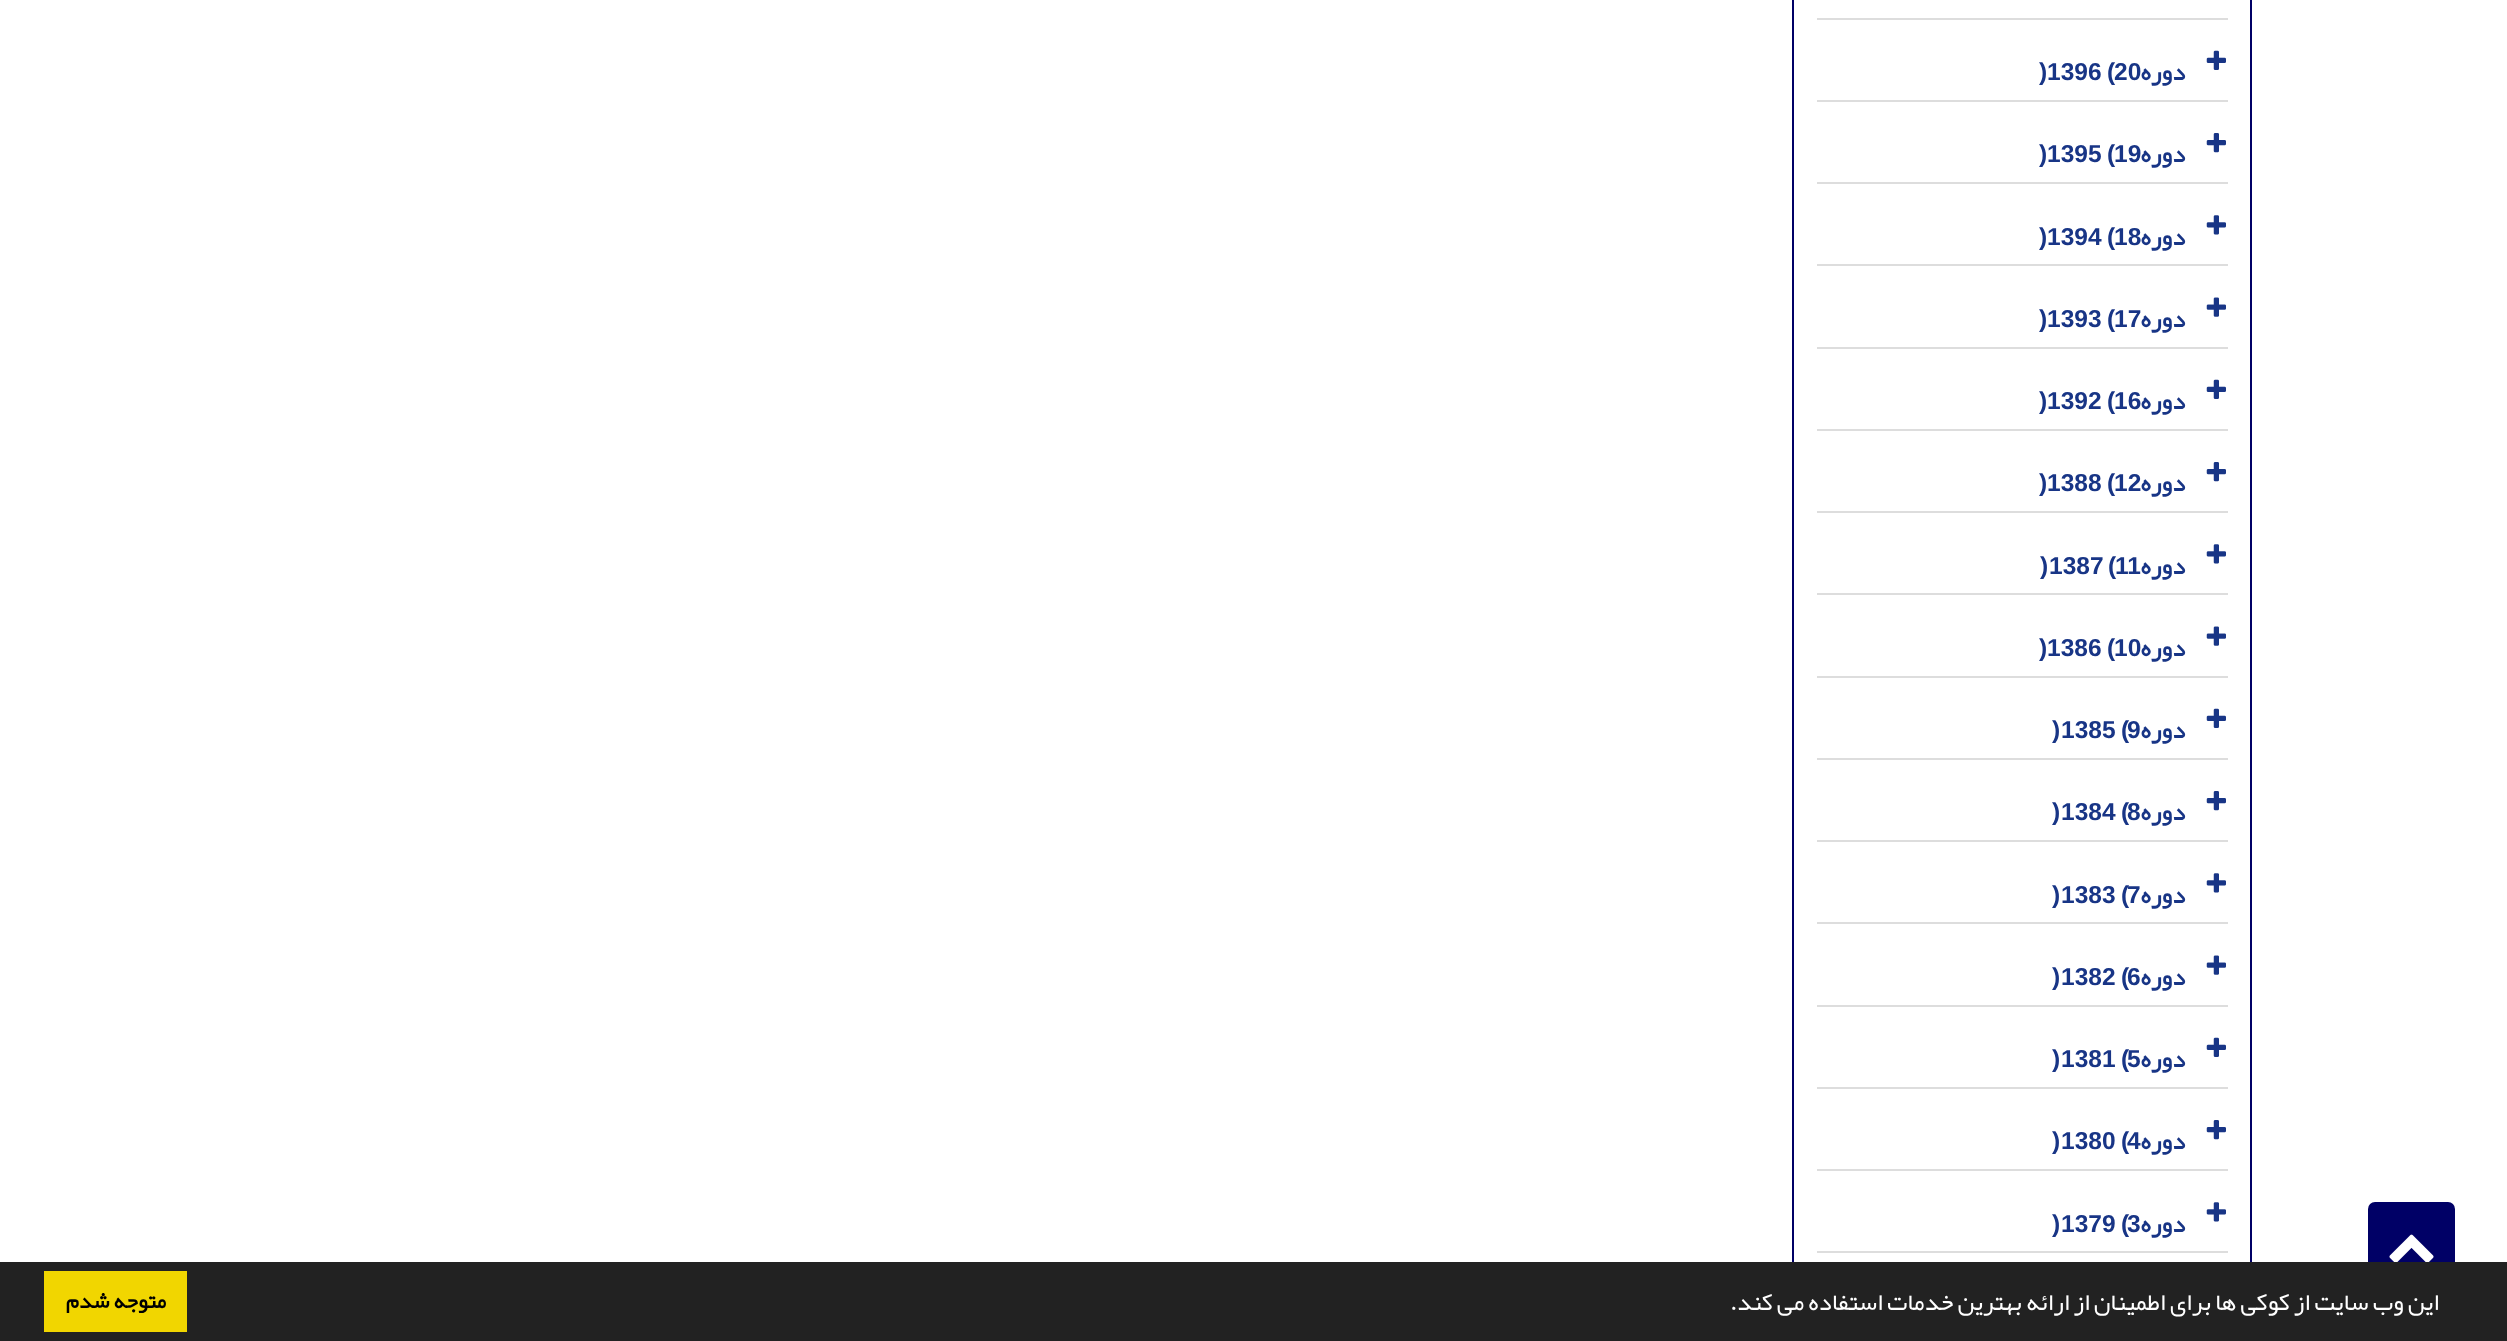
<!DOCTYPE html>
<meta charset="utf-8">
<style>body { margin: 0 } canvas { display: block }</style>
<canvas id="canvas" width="2507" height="1341"></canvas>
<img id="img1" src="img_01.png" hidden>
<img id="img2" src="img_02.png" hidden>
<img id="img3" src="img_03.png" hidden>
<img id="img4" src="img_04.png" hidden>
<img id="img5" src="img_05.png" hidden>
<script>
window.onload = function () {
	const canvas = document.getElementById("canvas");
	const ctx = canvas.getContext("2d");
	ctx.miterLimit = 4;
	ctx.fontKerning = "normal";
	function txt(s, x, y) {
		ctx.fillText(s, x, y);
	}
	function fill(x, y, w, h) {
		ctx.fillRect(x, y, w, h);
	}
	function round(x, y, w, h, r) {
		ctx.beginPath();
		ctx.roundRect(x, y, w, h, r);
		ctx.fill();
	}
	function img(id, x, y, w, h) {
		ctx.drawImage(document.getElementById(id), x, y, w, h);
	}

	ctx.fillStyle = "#FFFFFF";
	fill(0, 0, 2507, 1341);
	ctx.fillStyle = "#000066";
	round(2368, 1202, 87, 88, 7);
	img("img1", 2389, 1234, 45, 28);
	ctx.strokeStyle = "#000066";
	ctx.lineWidth = 2;
	ctx.strokeRect(1793, -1, 458, 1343);
	ctx.fillStyle = "#DDDDDD";
	fill(1817, 18, 411, 2);
	fill(1817, 100, 411, 2);
	img("img2", 2206, 50, 20, 20);
	fill(1817, 182, 411, 2);
	img("img3", 2206, 133, 20, 20);
	fill(1817, 264, 411, 2);
	img("img4", 2206, 215, 20, 20);
	fill(1817, 347, 411, 2);
	img("img5", 2206, 297, 20, 20);
	fill(1817, 429, 411, 2);
	img("img2", 2206, 379, 20, 20);
	fill(1817, 511, 411, 2);
	img("img3", 2206, 462, 20, 20);
	fill(1817, 593, 411, 2);
	img("img4", 2206, 544, 20, 20);
	fill(1817, 676, 411, 2);
	img("img5", 2206, 626, 20, 20);
	fill(1817, 758, 411, 2);
	img("img2", 2206, 708, 20, 20);
	fill(1817, 840, 411, 2);
	img("img3", 2206, 791, 20, 20);
	fill(1817, 922, 411, 2);
	img("img4", 2206, 873, 20, 20);
	fill(1817, 1005, 411, 2);
	img("img5", 2206, 955, 20, 20);
	fill(1817, 1087, 411, 2);
	img("img2", 2206, 1037, 20, 20);
	fill(1817, 1169, 411, 2);
	img("img3", 2206, 1120, 20, 20);
	fill(1817, 1251, 411, 2);
	img("img4", 2206, 1202, 20, 20);
	ctx.fillStyle = "#222222";
	fill(0, 1262, 2507, 79);
	ctx.fillStyle = "#F1D600";
	fill(44, 1271, 143, 61);
	ctx.direction = "rtl";
	ctx.font = "bold 24.5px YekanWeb";
	ctx.fillStyle = "#183586";
	txt("دوره", 2185, 80);
	ctx.direction = "ltr";
	ctx.font = "bold 24.5px Liberation Sans";
	txt("(", 2107, 80);
	txt("20", 2114, 80);
	txt("1396", 2047, 80);
	txt(")", 2039, 80);
	ctx.direction = "rtl";
	ctx.font = "bold 24.5px YekanWeb";
	txt("دوره", 2185, 162);
	ctx.direction = "ltr";
	ctx.font = "bold 24.5px Liberation Sans";
	txt("(", 2107, 162);
	txt("19", 2114, 162);
	txt("1395", 2047, 162);
	txt(")", 2039, 162);
	ctx.direction = "rtl";
	ctx.font = "bold 24.5px YekanWeb";
	txt("دوره", 2185, 245);
	ctx.direction = "ltr";
	ctx.font = "bold 24.5px Liberation Sans";
	txt("(", 2107, 245);
	txt("18", 2114, 245);
	txt("1394", 2047, 245);
	txt(")", 2039, 245);
	ctx.direction = "rtl";
	ctx.font = "bold 24.5px YekanWeb";
	txt("دوره", 2185, 327);
	ctx.direction = "ltr";
	ctx.font = "bold 24.5px Liberation Sans";
	txt("(", 2107, 327);
	txt("17", 2114, 327);
	txt("1393", 2047, 327);
	txt(")", 2039, 327);
	ctx.direction = "rtl";
	ctx.font = "bold 24.5px YekanWeb";
	txt("دوره", 2185, 409);
	ctx.direction = "ltr";
	ctx.font = "bold 24.5px Liberation Sans";
	txt("(", 2107, 409);
	txt("16", 2114, 409);
	txt("1392", 2047, 409);
	txt(")", 2039, 409);
	ctx.direction = "rtl";
	ctx.font = "bold 24.5px YekanWeb";
	txt("دوره", 2185, 491);
	ctx.direction = "ltr";
	ctx.font = "bold 24.5px Liberation Sans";
	txt("(", 2107, 491);
	txt("12", 2114, 491);
	txt("1388", 2047, 491);
	txt(")", 2039, 491);
	ctx.direction = "rtl";
	ctx.font = "bold 24.5px YekanWeb";
	txt("دوره", 2185, 574);
	ctx.direction = "ltr";
	ctx.font = "bold 24.5px Liberation Sans";
	txt("(", 2108, 574);
	txt("11", 2115, 574);
	txt("1387", 2049, 574);
	txt(")", 2040, 574);
	ctx.direction = "rtl";
	ctx.font = "bold 24.5px YekanWeb";
	txt("دوره", 2185, 656);
	ctx.direction = "ltr";
	ctx.font = "bold 24.5px Liberation Sans";
	txt("(", 2107, 656);
	txt("10", 2114, 656);
	txt("1386", 2047, 656);
	txt(")", 2039, 656);
	ctx.direction = "rtl";
	ctx.font = "bold 24.5px YekanWeb";
	txt("دوره", 2185, 738);
	ctx.direction = "ltr";
	ctx.font = "bold 24.5px Liberation Sans";
	txt("(", 2121, 738);
	txt("9", 2127, 738);
	txt("1385", 2061, 738);
	txt(")", 2052, 738);
	ctx.direction = "rtl";
	ctx.font = "bold 24.5px YekanWeb";
	txt("دوره", 2185, 820);
	ctx.direction = "ltr";
	ctx.font = "bold 24.5px Liberation Sans";
	txt("(", 2121, 820);
	txt("8", 2127, 820);
	txt("1384", 2061, 820);
	txt(")", 2052, 820);
	ctx.direction = "rtl";
	ctx.font = "bold 24.5px YekanWeb";
	txt("دوره", 2185, 903);
	ctx.direction = "ltr";
	ctx.font = "bold 24.5px Liberation Sans";
	txt("(", 2121, 903);
	txt("7", 2127, 903);
	txt("1383", 2061, 903);
	txt(")", 2052, 903);
	ctx.direction = "rtl";
	ctx.font = "bold 24.5px YekanWeb";
	txt("دوره", 2185, 985);
	ctx.direction = "ltr";
	ctx.font = "bold 24.5px Liberation Sans";
	txt("(", 2121, 985);
	txt("6", 2127, 985);
	txt("1382", 2061, 985);
	txt(")", 2052, 985);
	ctx.direction = "rtl";
	ctx.font = "bold 24.5px YekanWeb";
	txt("دوره", 2185, 1067);
	ctx.direction = "ltr";
	ctx.font = "bold 24.5px Liberation Sans";
	txt("(", 2121, 1067);
	txt("5", 2127, 1067);
	txt("1381", 2061, 1067);
	txt(")", 2052, 1067);
	ctx.direction = "rtl";
	ctx.font = "bold 24.5px YekanWeb";
	txt("دوره", 2185, 1149);
	ctx.direction = "ltr";
	ctx.font = "bold 24.5px Liberation Sans";
	txt("(", 2121, 1149);
	txt("4", 2127, 1149);
	txt("1380", 2061, 1149);
	txt(")", 2052, 1149);
	ctx.direction = "rtl";
	ctx.font = "bold 24.5px YekanWeb";
	txt("دوره", 2185, 1232);
	ctx.direction = "ltr";
	ctx.font = "bold 24.5px Liberation Sans";
	txt("(", 2121, 1232);
	txt("3", 2127, 1232);
	txt("1379", 2061, 1232);
	txt(")", 2052, 1232);
	ctx.direction = "rtl";
	ctx.font = "24.5px YekanWeb";
	ctx.fillStyle = "#FFFFFF";
	txt("این وب سایت از کوکی ها برای اطمینان از ارائه بهترین خدمات استفاده می کند.", 2439, 1310);
	ctx.font = "bold 22px YekanWeb";
	ctx.fillStyle = "#000000";
	txt("متوجه شدم", 166, 1308);
};
</script>
